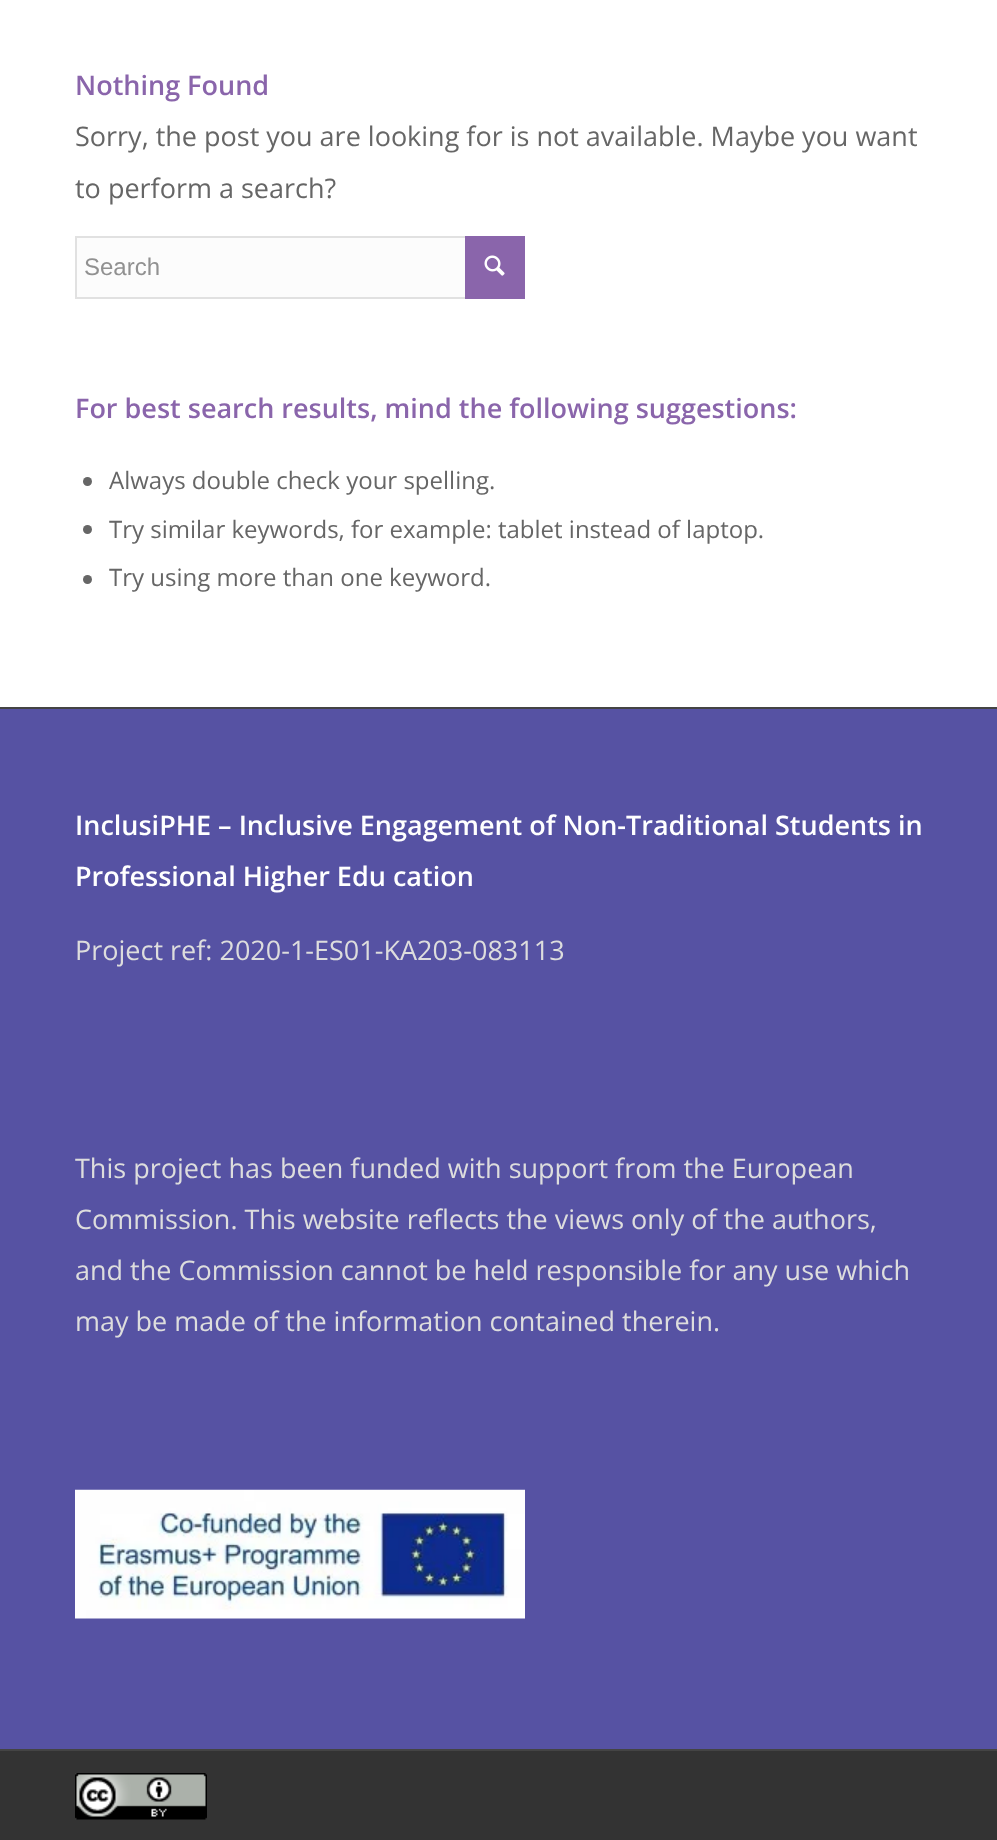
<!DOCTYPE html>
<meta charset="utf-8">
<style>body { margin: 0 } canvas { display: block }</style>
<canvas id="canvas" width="997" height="1840"></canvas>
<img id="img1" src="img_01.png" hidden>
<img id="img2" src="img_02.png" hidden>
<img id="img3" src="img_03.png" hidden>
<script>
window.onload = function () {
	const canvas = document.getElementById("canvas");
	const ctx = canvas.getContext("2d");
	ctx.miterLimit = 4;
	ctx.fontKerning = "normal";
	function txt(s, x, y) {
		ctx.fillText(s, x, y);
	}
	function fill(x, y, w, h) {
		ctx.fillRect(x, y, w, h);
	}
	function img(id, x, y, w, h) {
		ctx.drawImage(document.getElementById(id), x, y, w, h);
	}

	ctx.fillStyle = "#FFFFFF";
	fill(0, 0, 997, 1840);
	ctx.fillStyle = "#FCFCFC";
	fill(77, 238, 388, 59);
	ctx.strokeStyle = "#E1E1E1";
	ctx.lineWidth = 2;
	ctx.strokeRect(76, 237, 448, 61);
	ctx.fillStyle = "#8A65AB";
	fill(465, 236, 60, 63);
	img("img1", 484, 255, 21, 21);
	ctx.fillStyle = "#666666";
	ctx.beginPath();
	ctx.arc(87.5, 481.5, 4.5, 0, Math.PI * 2);
	ctx.fill();
	ctx.beginPath();
	ctx.arc(87.5, 529.5, 4.5, 0, Math.PI * 2);
	ctx.fill();
	ctx.beginPath();
	ctx.arc(87.5, 579.5, 4.5, 0, Math.PI * 2);
	ctx.fill();
	ctx.fillStyle = "#5652A3";
	fill(0, 709, 997, 1040);
	ctx.fillStyle = "#444444";
	fill(0, 707, 997, 2);
	img("img2", 75, 1489, 450, 130);
	ctx.fillStyle = "#333333";
	fill(0, 1751, 997, 89);
	ctx.fillStyle = "#444444";
	fill(0, 1749, 997, 2);
	img("img3", 75, 1773, 132, 47);
	ctx.font = "600 27px Open Sans";
	ctx.fillStyle = "#8A65AB";
	txt("Nothing Found", 75, 95);
	ctx.font = "27px Open Sans";
	ctx.fillStyle = "#666666";
	txt("Sorry, the post you are looking for is not available. Maybe you want", 75, 146);
	txt("to perform a search?", 75, 198);
	ctx.font = "24px Liberation Sans";
	ctx.fillStyle = "#919191";
	txt("Search", 84, 275);
	ctx.font = "600 27px Open Sans";
	ctx.fillStyle = "#8A65AB";
	txt("For best search results, mind the following suggestions:", 75, 418);
	ctx.font = "24px Open Sans";
	ctx.fillStyle = "#666666";
	txt("Always double check your spelling.", 109, 489);
	txt("Try similar keywords, for example: tablet instead of laptop.", 109, 538);
	txt("Try using more than one keyword.", 109, 586);
	ctx.font = "600 27px Open Sans";
	ctx.fillStyle = "#FFFFFF";
	txt("InclusiPHE – Inclusive Engagement of Non-Traditional Students in", 75, 835);
	txt("Professional Higher Edu cation", 75, 886);
	ctx.font = "27px Open Sans";
	ctx.fillStyle = "#DDDDDD";
	txt("Project ref: 2020-1-ES01-KA203-083113", 75, 960);
	txt("This project has been funded with support from the European", 75, 1178);
	txt("Commission. This website reflects the views only of the authors,", 75, 1229);
	txt("and the Commission cannot be held responsible for any use which", 75, 1280);
	txt("may be made of the information contained therein.", 75, 1331);
};
</script>
